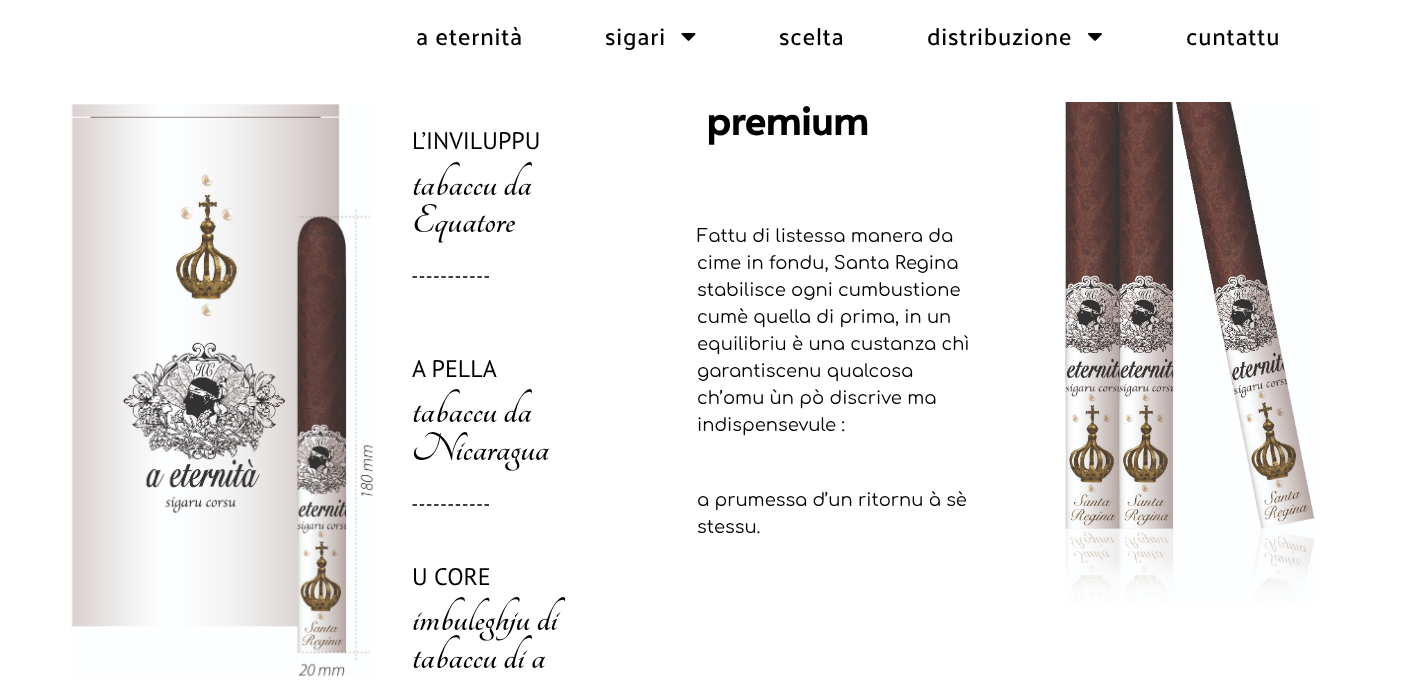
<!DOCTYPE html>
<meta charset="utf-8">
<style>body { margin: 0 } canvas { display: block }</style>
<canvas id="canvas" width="1413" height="686"></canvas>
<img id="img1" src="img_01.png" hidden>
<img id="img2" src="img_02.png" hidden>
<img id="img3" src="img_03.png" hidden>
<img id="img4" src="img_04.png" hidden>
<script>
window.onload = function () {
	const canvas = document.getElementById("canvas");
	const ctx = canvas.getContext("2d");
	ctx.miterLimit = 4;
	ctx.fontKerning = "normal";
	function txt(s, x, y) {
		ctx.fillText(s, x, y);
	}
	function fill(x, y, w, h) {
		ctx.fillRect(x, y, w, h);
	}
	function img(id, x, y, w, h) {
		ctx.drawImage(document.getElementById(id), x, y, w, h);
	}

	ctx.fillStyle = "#FFFFFF";
	fill(0, 0, 1413, 686);
	img("img1", 681, 33, 15, 8);
	img("img2", 1088, 33, 14, 8);
	img("img3", 71, 104, 302, 573);
	ctx.beginPath();
	ctx.moveTo(412.5, 277);
	ctx.lineTo(489, 277);
	ctx.strokeStyle = "#000000";
	ctx.lineWidth = 1.5;
	ctx.setLineDash([4.5, 2.7]);
	ctx.stroke();
	ctx.beginPath();
	ctx.moveTo(412.5, 505);
	ctx.lineTo(489, 505);
	ctx.stroke();
	img("img4", 1064, 102, 251, 503);
	ctx.letterSpacing = "0.75px";
	ctx.font = "500 24px Palanquin";
	ctx.fillStyle = "#000000";
	txt("a eternità", 416, 45);
	txt("sigari", 605, 45);
	txt("scelta", 779, 45);
	txt("distribuzione", 927, 45);
	txt("cuntattu", 1186, 45);
	ctx.letterSpacing = "0px";
	ctx.font = "24px PT Sans";
	txt("L’INVILUPPU", 412, 149);
	ctx.font = "bold 43.5px Tangerine";
	txt("tabaccu da", 412, 195);
	txt("Equatore", 412, 232);
	ctx.font = "24px PT Sans";
	txt("A PELLA", 412, 377);
	ctx.font = "bold 43.5px Tangerine";
	txt("tabaccu da", 412, 422);
	txt("Nicaragua", 412, 460);
	ctx.font = "24px PT Sans";
	txt("U CORE", 412, 585);
	ctx.font = "bold 43.5px Tangerine";
	txt("imbuleghju di", 412, 630);
	txt("tabaccu di a", 412, 668);
	ctx.font = "bold 40.5px Alata";
	txt("premium", 706, 135);
	ctx.font = "18px Comfortaa";
	txt("Fattu di listessa manera da", 697, 242);
	txt("cime in fondu, Santa Regina", 697, 269);
	txt("stabilisce ogni cumbustione", 697, 296);
	txt("cumè quella di prima, in un", 697, 323);
	txt("equilibriu è una custanza chì", 697, 350);
	txt("garantiscenu qualcosa", 697, 377);
	txt("ch’omu ùn pò discrive ma", 697, 404);
	txt("indispensevule :", 697, 431);
	txt("a prumessa d’un ritornu à sè", 697, 506);
	txt("stessu.", 697, 533);
};
</script>
